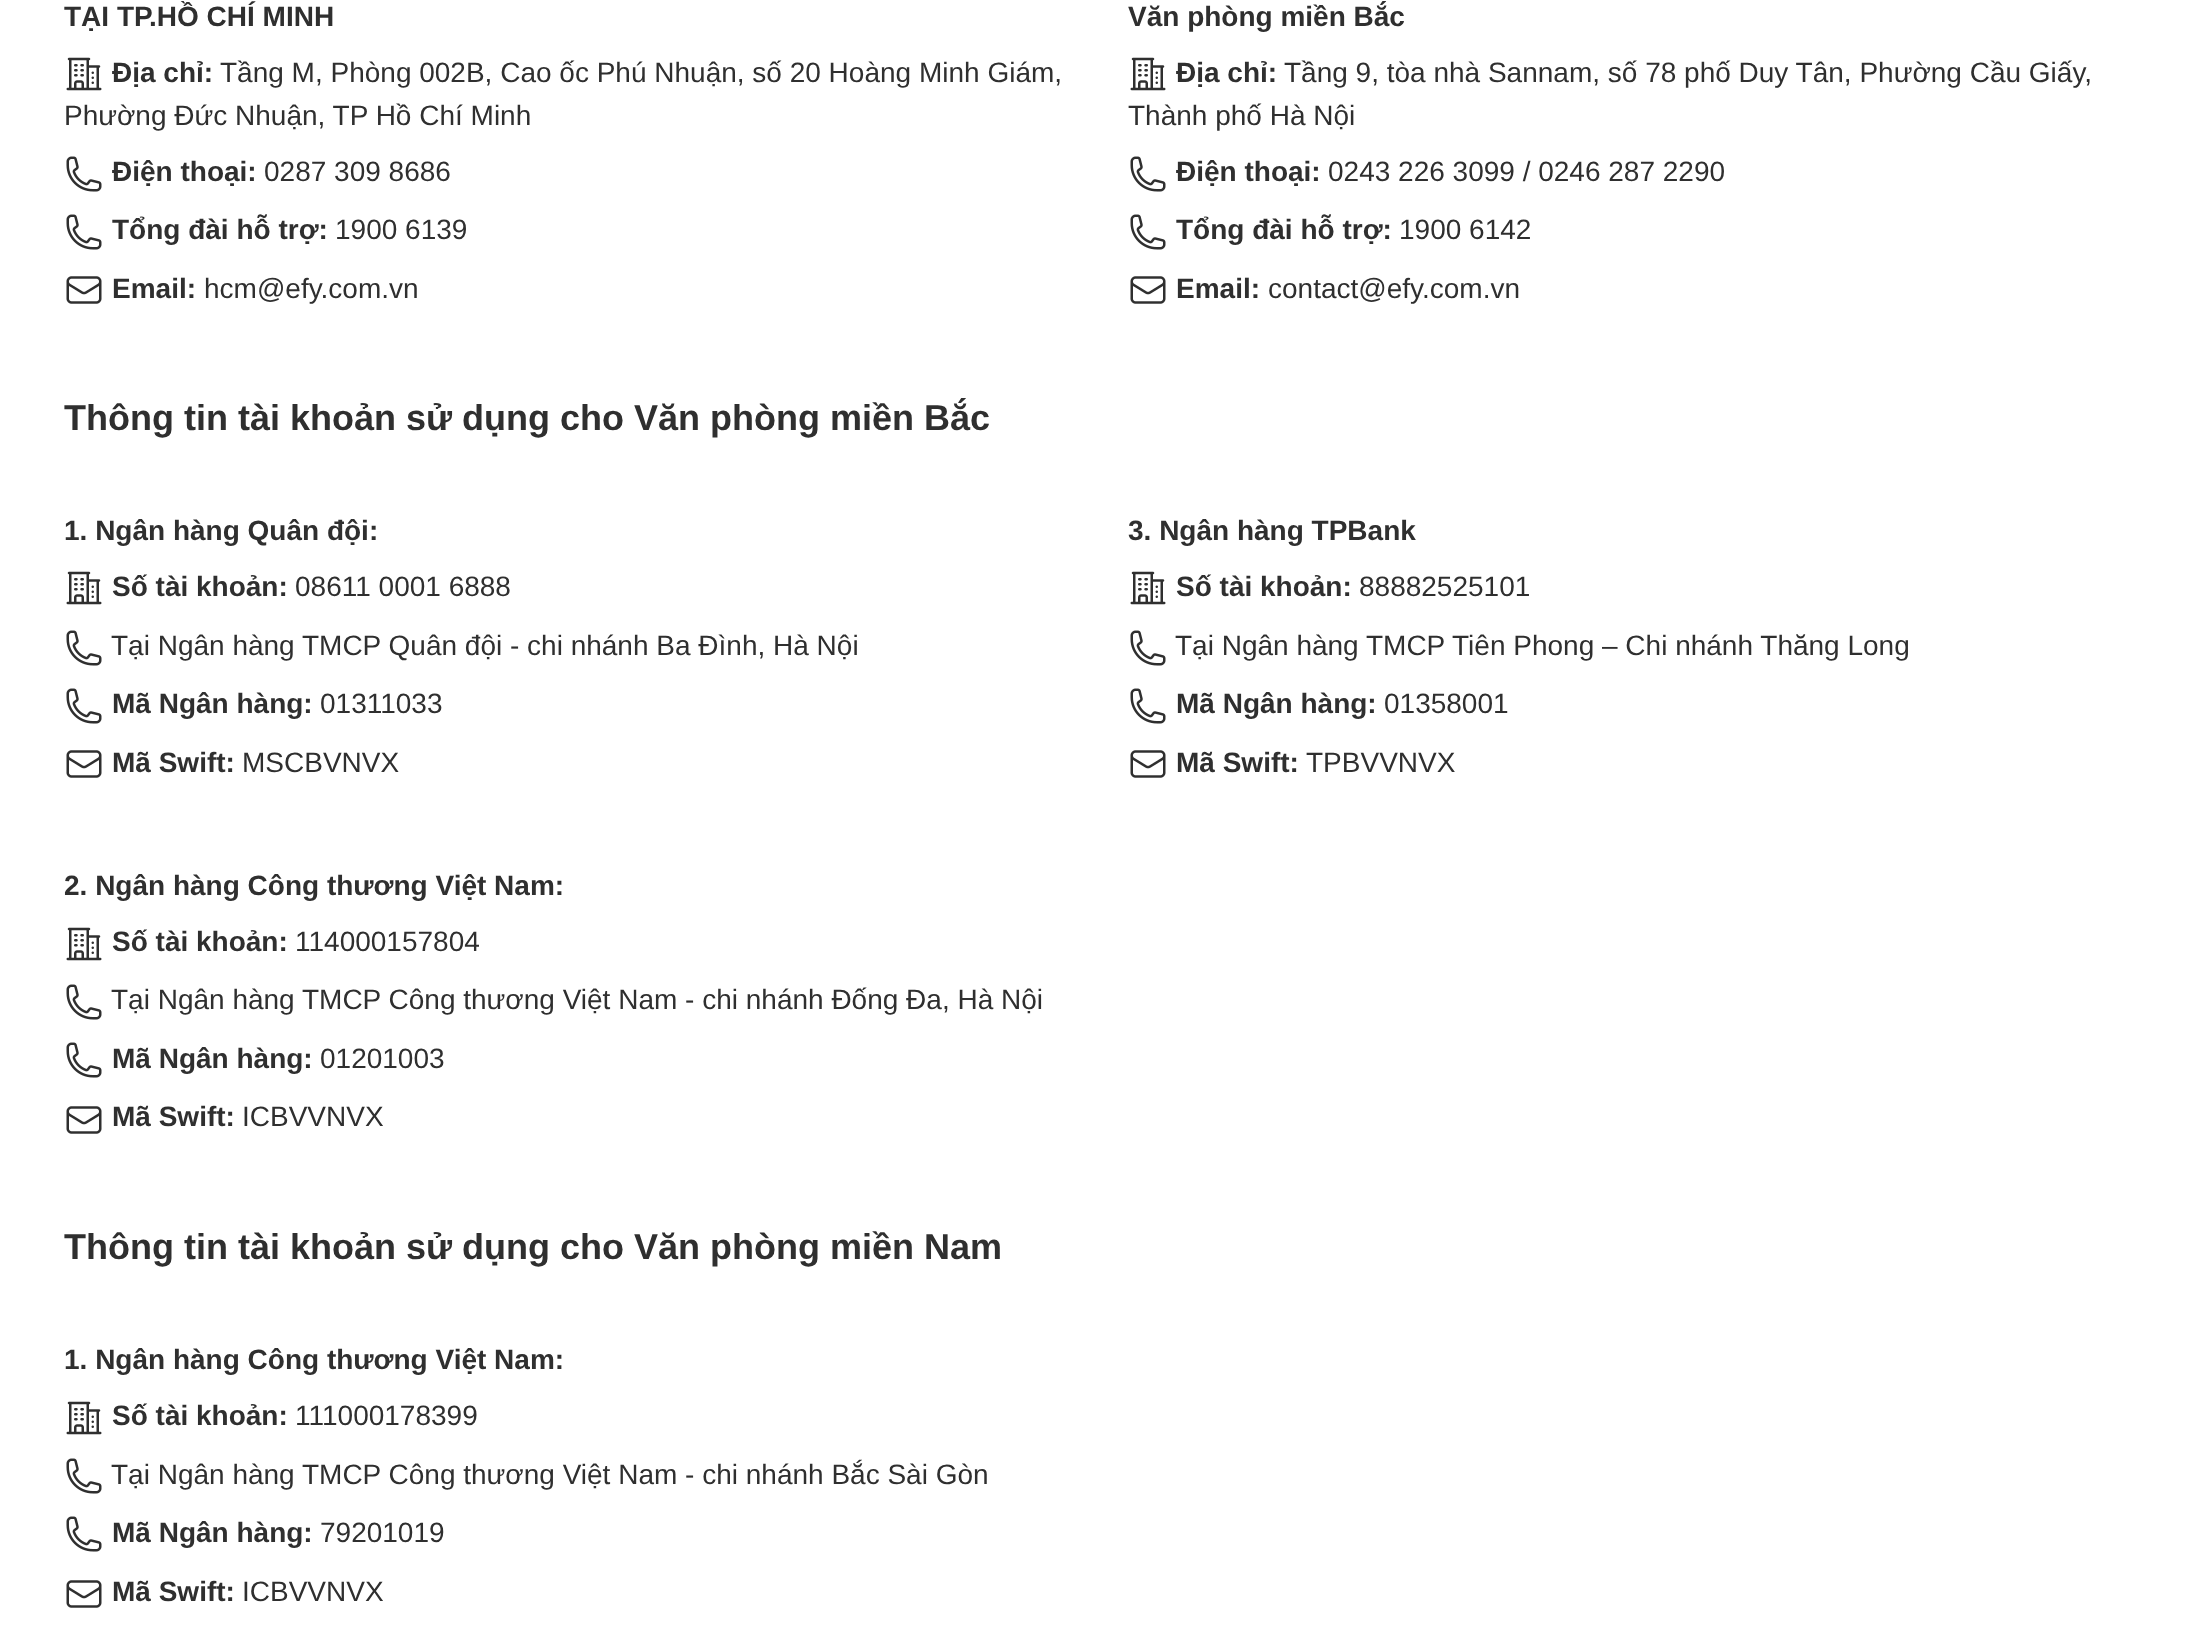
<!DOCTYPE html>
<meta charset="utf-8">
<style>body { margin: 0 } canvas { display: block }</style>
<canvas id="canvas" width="2191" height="1630"></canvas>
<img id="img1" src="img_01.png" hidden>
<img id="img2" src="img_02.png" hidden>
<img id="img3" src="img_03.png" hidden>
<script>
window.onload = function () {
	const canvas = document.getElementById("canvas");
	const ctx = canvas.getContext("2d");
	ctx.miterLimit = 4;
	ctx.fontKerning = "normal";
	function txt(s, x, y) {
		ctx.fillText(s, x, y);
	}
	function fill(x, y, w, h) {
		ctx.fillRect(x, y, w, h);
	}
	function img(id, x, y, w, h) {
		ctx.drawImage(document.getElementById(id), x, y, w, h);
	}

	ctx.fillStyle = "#FFFFFF";
	fill(0, 0, 2191, 1630);
	img("img1", 66, 57, 36, 34);
	img("img2", 66, 156, 36, 36);
	img("img2", 66, 214, 36, 36);
	img("img3", 66, 276, 36, 28);
	img("img1", 1130, 57, 36, 34);
	img("img2", 1130, 156, 36, 36);
	img("img2", 1130, 214, 36, 36);
	img("img3", 1130, 276, 36, 28);
	img("img1", 66, 571, 36, 34);
	img("img2", 66, 630, 36, 36);
	img("img2", 66, 688, 36, 36);
	img("img3", 66, 750, 36, 28);
	img("img1", 1130, 571, 36, 34);
	img("img2", 1130, 630, 36, 36);
	img("img2", 1130, 688, 36, 36);
	img("img3", 1130, 750, 36, 28);
	img("img1", 66, 927, 36, 34);
	img("img2", 66, 984, 36, 36);
	img("img2", 66, 1042, 36, 36);
	img("img3", 66, 1106, 36, 28);
	img("img1", 66, 1401, 36, 34);
	img("img2", 66, 1458, 36, 36);
	img("img2", 66, 1516, 36, 36);
	img("img3", 66, 1580, 36, 28);
	ctx.font = "bold 28px Liberation Sans";
	ctx.fillStyle = "#2F2F2F";
	txt("TẠI TP.HỒ CHÍ MINH", 64, 26);
	txt("Địa chỉ:", 112, 82);
	ctx.font = "28px Liberation Sans";
	txt("Tầng M, Phòng 002B, Cao ốc Phú Nhuận, số 20 Hoàng Minh Giám,", 220, 82);
	txt("Phường Đức Nhuận, TP Hồ Chí Minh", 64, 125);
	ctx.font = "bold 28px Liberation Sans";
	txt("Điện thoại:", 112, 181);
	ctx.font = "28px Liberation Sans";
	txt("0287 309 8686", 264, 181);
	ctx.font = "bold 28px Liberation Sans";
	txt("Tổng đài hỗ trợ:", 112, 239);
	ctx.font = "28px Liberation Sans";
	txt("1900 6139", 335, 239);
	ctx.font = "bold 28px Liberation Sans";
	txt("Email:", 112, 298);
	ctx.font = "28px Liberation Sans";
	txt("hcm@efy.com.vn", 204, 298);
	ctx.font = "bold 28px Liberation Sans";
	txt("Văn phòng miền Bắc", 1128, 26);
	txt("Địa chỉ:", 1176, 82);
	ctx.font = "28px Liberation Sans";
	txt("Tầng 9, tòa nhà Sannam, số 78 phố Duy Tân, Phường Cầu Giấy,", 1284, 82);
	txt("Thành phố Hà Nội", 1128, 125);
	ctx.font = "bold 28px Liberation Sans";
	txt("Điện thoại:", 1176, 181);
	ctx.font = "28px Liberation Sans";
	txt("0243 226 3099 / 0246 287 2290", 1328, 181);
	ctx.font = "bold 28px Liberation Sans";
	txt("Tổng đài hỗ trợ:", 1176, 239);
	ctx.font = "28px Liberation Sans";
	txt("1900 6142", 1399, 239);
	ctx.font = "bold 28px Liberation Sans";
	txt("Email:", 1176, 298);
	ctx.font = "28px Liberation Sans";
	txt("contact@efy.com.vn", 1268, 298);
	ctx.font = "bold 36px Liberation Sans";
	txt("Thông tin tài khoản sử dụng cho Văn phòng miền Bắc", 64, 430);
	ctx.font = "bold 28px Liberation Sans";
	txt("1. Ngân hàng Quân đội:", 64, 540);
	txt("Số tài khoản:", 112, 596);
	ctx.font = "28px Liberation Sans";
	txt("08611 0001 6888", 295, 596);
	txt("Tại Ngân hàng TMCP Quân đội - chi nhánh Ba Đình, Hà Nội", 111, 655);
	ctx.font = "bold 28px Liberation Sans";
	txt("Mã Ngân hàng:", 112, 713);
	ctx.font = "28px Liberation Sans";
	txt("01311033", 320, 713);
	ctx.font = "bold 28px Liberation Sans";
	txt("Mã Swift:", 112, 772);
	ctx.font = "28px Liberation Sans";
	txt("MSCBVNVX", 242, 772);
	ctx.font = "bold 28px Liberation Sans";
	txt("3. Ngân hàng TPBank", 1128, 540);
	txt("Số tài khoản:", 1176, 596);
	ctx.font = "28px Liberation Sans";
	txt("88882525101", 1359, 596);
	txt("Tại Ngân hàng TMCP Tiên Phong – Chi nhánh Thăng Long", 1175, 655);
	ctx.font = "bold 28px Liberation Sans";
	txt("Mã Ngân hàng:", 1176, 713);
	ctx.font = "28px Liberation Sans";
	txt("01358001", 1384, 713);
	ctx.font = "bold 28px Liberation Sans";
	txt("Mã Swift:", 1176, 772);
	ctx.font = "28px Liberation Sans";
	txt("TPBVVNVX", 1306, 772);
	ctx.font = "bold 28px Liberation Sans";
	txt("2. Ngân hàng Công thương Việt Nam:", 64, 895);
	txt("Số tài khoản:", 112, 951);
	ctx.font = "28px Liberation Sans";
	txt("114000157804", 295, 951);
	txt("Tại Ngân hàng TMCP Công thương Việt Nam - chi nhánh Đống Đa, Hà Nội", 111, 1009);
	ctx.font = "bold 28px Liberation Sans";
	txt("Mã Ngân hàng:", 112, 1068);
	ctx.font = "28px Liberation Sans";
	txt("01201003", 320, 1068);
	ctx.font = "bold 28px Liberation Sans";
	txt("Mã Swift:", 112, 1126);
	ctx.font = "28px Liberation Sans";
	txt("ICBVVNVX", 242, 1126);
	ctx.font = "bold 36px Liberation Sans";
	txt("Thông tin tài khoản sử dụng cho Văn phòng miền Nam", 64, 1259);
	ctx.font = "bold 28px Liberation Sans";
	txt("1. Ngân hàng Công thương Việt Nam:", 64, 1369);
	txt("Số tài khoản:", 112, 1425);
	ctx.font = "28px Liberation Sans";
	txt("111000178399", 295, 1425);
	txt("Tại Ngân hàng TMCP Công thương Việt Nam - chi nhánh Bắc Sài Gòn", 111, 1484);
	ctx.font = "bold 28px Liberation Sans";
	txt("Mã Ngân hàng:", 112, 1542);
	ctx.font = "28px Liberation Sans";
	txt("79201019", 320, 1542);
	ctx.font = "bold 28px Liberation Sans";
	txt("Mã Swift:", 112, 1601);
	ctx.font = "28px Liberation Sans";
	txt("ICBVVNVX", 242, 1601);
};
</script>
